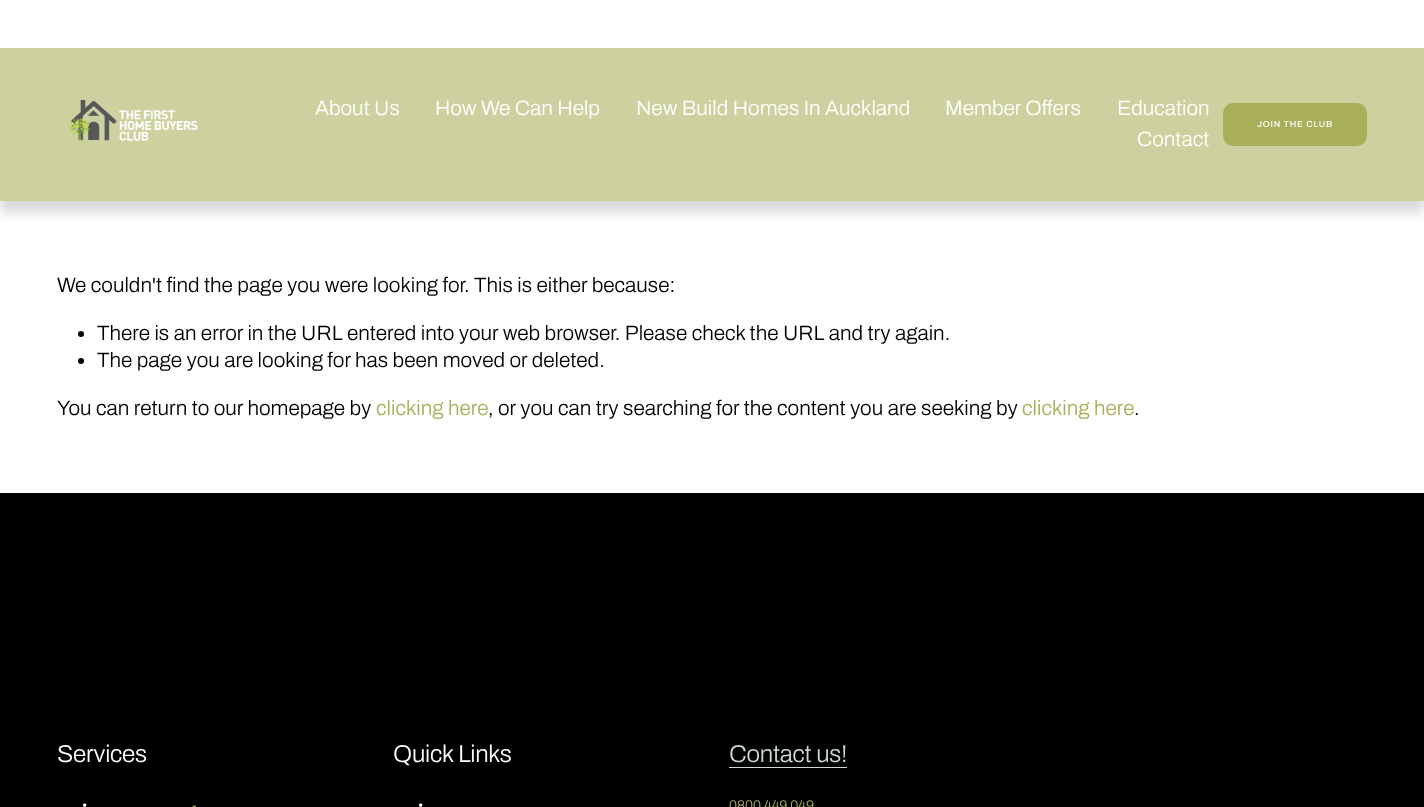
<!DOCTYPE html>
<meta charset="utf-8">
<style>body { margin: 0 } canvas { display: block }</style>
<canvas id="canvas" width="1424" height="807"></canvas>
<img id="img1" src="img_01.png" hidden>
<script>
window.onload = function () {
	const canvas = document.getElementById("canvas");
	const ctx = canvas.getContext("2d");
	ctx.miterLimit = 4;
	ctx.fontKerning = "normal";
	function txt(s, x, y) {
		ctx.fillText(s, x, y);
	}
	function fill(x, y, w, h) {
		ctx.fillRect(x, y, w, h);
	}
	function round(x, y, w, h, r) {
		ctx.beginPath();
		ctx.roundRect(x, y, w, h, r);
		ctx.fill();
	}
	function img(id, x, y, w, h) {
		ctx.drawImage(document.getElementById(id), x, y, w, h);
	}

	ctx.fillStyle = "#FFFFFF";
	fill(0, 0, 1424, 807);
	ctx.fillStyle = "#D9D9D9";
	ctx.filter = "blur(6px)";
	ctx.beginPath();
	ctx.rect(0, 60, 1424, 153);
	ctx.fill();
	ctx.filter = "none";
	ctx.fillStyle = "#CDD19F";
	fill(0, 48, 1424, 153);
	img("img1", 69, 99, 129, 42);
	ctx.fillStyle = "#A9AF59";
	round(1223, 103, 144, 43, 10);
	ctx.fillStyle = "#000000";
	ctx.beginPath();
	ctx.arc(81, 334, 3, 0, Math.PI * 2);
	ctx.fill();
	ctx.beginPath();
	ctx.arc(81, 361, 3, 0, Math.PI * 2);
	ctx.fill();
	fill(0, 493, 1424, 314);
	ctx.fillStyle = "#CDD8D9";
	fill(729, 767, 118, 1);
	ctx.font = "300 20.85px Archivo";
	ctx.fillStyle = "#FFFFFF";
	txt("About Us", 315, 115);
	txt("How We Can Help", 435, 115);
	txt("New Build Homes In Auckland", 636, 115);
	txt("Member Offers", 945, 115);
	txt("Education", 1117, 115);
	txt("Contact", 1137, 146);
	ctx.letterSpacing = "0.75px";
	ctx.font = "500 8.9px Archivo";
	txt("JOIN THE CLUB", 1257, 127);
	ctx.letterSpacing = "0px";
	ctx.font = "300 20.85px Archivo";
	ctx.fillStyle = "#000000";
	txt("We couldn't find the page you were looking for. This is either because:", 57, 292);
	txt("There is an error in the URL entered into your web browser. Please check the URL and try again.", 97, 340);
	txt("The page you are looking for has been moved or deleted.", 97, 367);
	txt("You can return to our homepage by", 57, 415);
	ctx.fillStyle = "#A9AF59";
	txt("clicking here", 376, 415);
	ctx.fillStyle = "#000000";
	txt(", or you can try searching for the content you are seeking by", 488, 415);
	ctx.fillStyle = "#A9AF59";
	txt("clicking here", 1022, 415);
	ctx.fillStyle = "#000000";
	txt(".", 1134, 415);
	ctx.letterSpacing = "-0.25px";
	ctx.font = "300 24.25px Archivo";
	ctx.fillStyle = "#FFFFFF";
	txt("Services", 57, 762);
	ctx.letterSpacing = "0px";
	ctx.font = "300 14px Archivo";
	txt("•", 82, 810);
	ctx.fillStyle = "#A9AF59";
	txt("-", 192, 810);
	ctx.letterSpacing = "-0.25px";
	ctx.font = "300 24.25px Archivo";
	ctx.fillStyle = "#FFFFFF";
	txt("Quick Links", 393, 762);
	ctx.letterSpacing = "0px";
	ctx.font = "300 14px Archivo";
	txt("•", 418, 810);
	ctx.letterSpacing = "-0.25px";
	ctx.font = "300 24.25px Archivo";
	ctx.fillStyle = "#CDD8D9";
	txt("Contact us!", 729, 762);
	ctx.letterSpacing = "0px";
	ctx.font = "300 14px Archivo";
	ctx.fillStyle = "#A9AF59";
	txt("0800 449 049", 729, 810);
};
</script>
